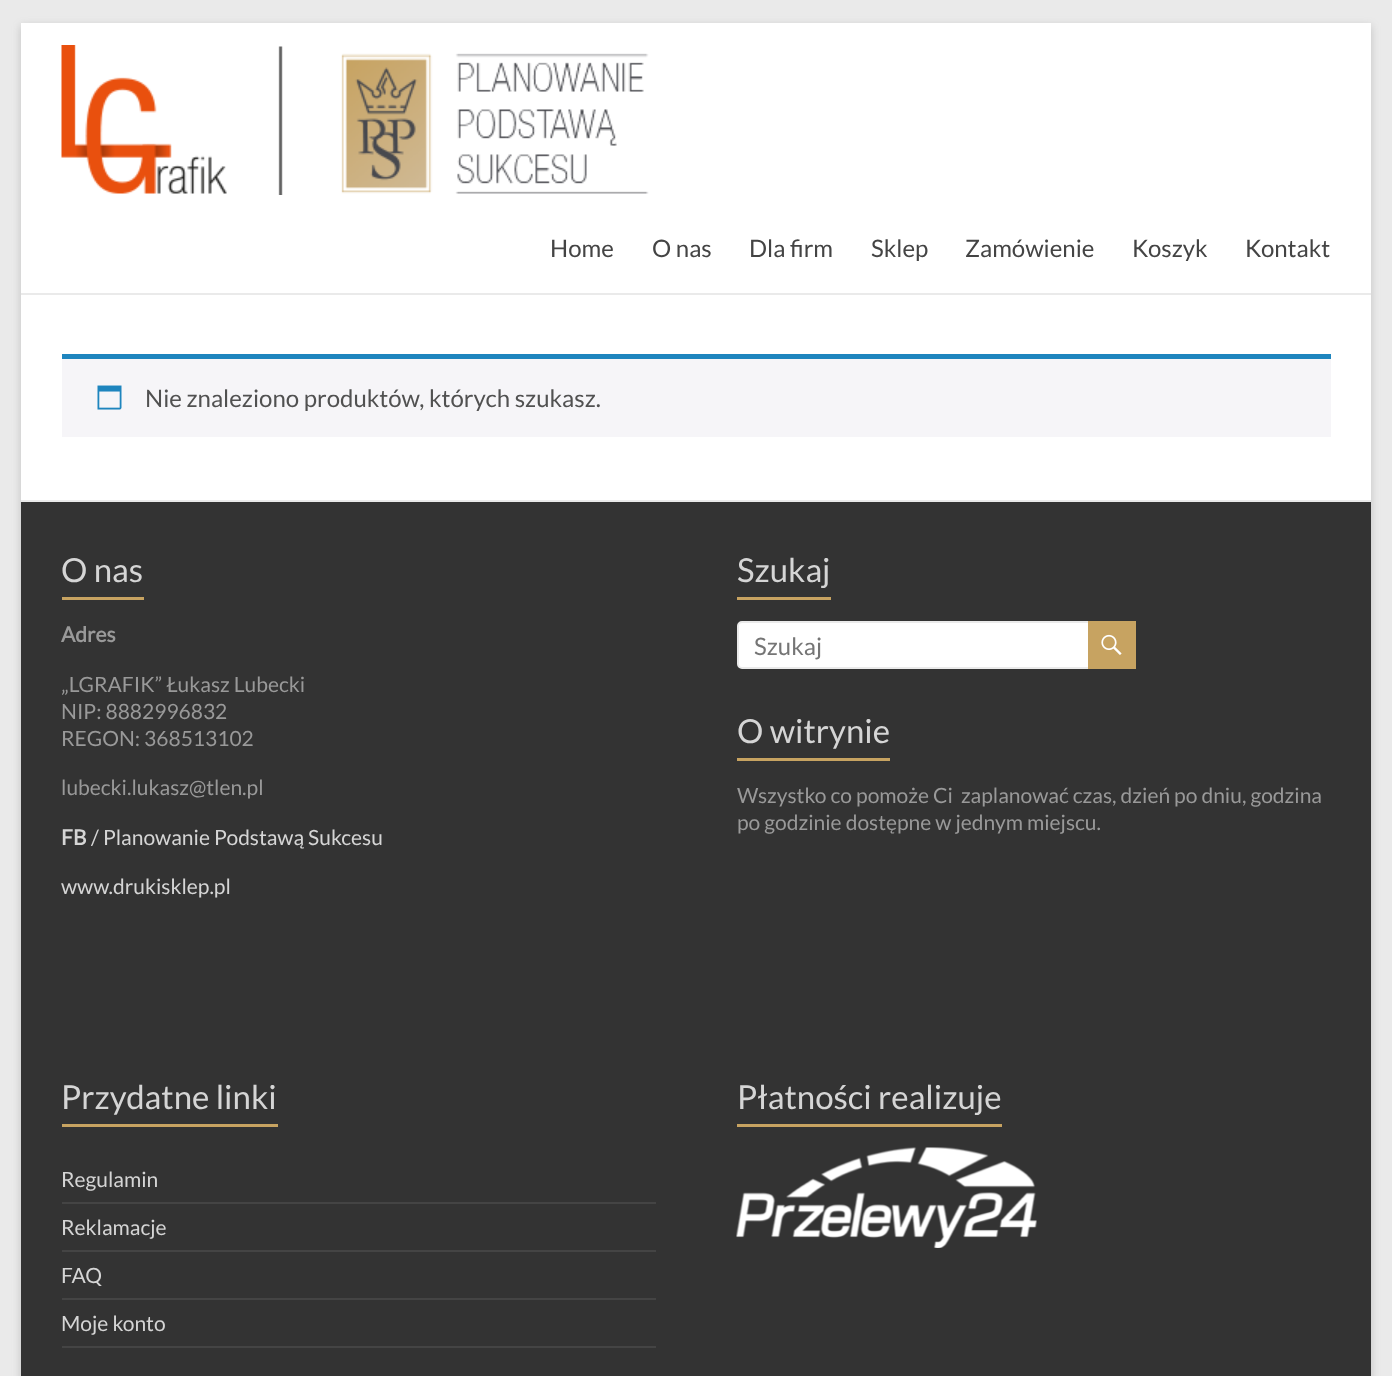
<!DOCTYPE html>
<meta charset="utf-8">
<style>body { margin: 0 } canvas { display: block }</style>
<canvas id="canvas" width="1392" height="1376"></canvas>
<img id="img1" src="img_01.png" hidden>
<img id="img2" src="img_02.png" hidden>
<img id="img3" src="img_03.png" hidden>
<img id="img4" src="img_04.png" hidden>
<script>
window.onload = function () {
	const canvas = document.getElementById("canvas");
	const ctx = canvas.getContext("2d");
	ctx.miterLimit = 4;
	ctx.fontKerning = "normal";
	function txt(s, x, y) {
		ctx.fillText(s, x, y);
	}
	function fill(x, y, w, h) {
		ctx.fillRect(x, y, w, h);
	}
	function img(id, x, y, w, h) {
		ctx.drawImage(document.getElementById(id), x, y, w, h);
	}

	ctx.fillStyle = "#EAEAEA";
	fill(0, 0, 1392, 1376);
	ctx.fillStyle = "rgba(100, 100, 100, 0.3)";
	ctx.filter = "blur(4.5px)";
	ctx.beginPath();
	ctx.rect(21, 26, 1350, 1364);
	ctx.fill();
	ctx.filter = "none";
	ctx.fillStyle = "#FFFFFF";
	fill(21, 23, 1350, 477);
	ctx.fillStyle = "#EAEAEA";
	fill(21, 293, 1350, 2);
	img("img1", 61, 45, 588, 150);
	ctx.fillStyle = "#F6F5F8";
	fill(62, 359, 1269, 78);
	ctx.fillStyle = "#1E85BE";
	fill(62, 354, 1269, 5);
	img("img2", 97, 385, 25, 25);
	ctx.fillStyle = "#333333";
	fill(21, 502, 1350, 874);
	ctx.fillStyle = "#EAEAEA";
	fill(21, 500, 1350, 2);
	ctx.fillStyle = "#C7A361";
	fill(62, 597, 82, 3);
	fill(737, 597, 94, 3);
	ctx.fillStyle = "#FFFFFF";
	ctx.beginPath();
	ctx.roundRect(738, 622, 355, 46, 4);
	ctx.fill();
	ctx.strokeStyle = "#EAEAEA";
	ctx.lineWidth = 2;
	ctx.stroke();
	ctx.fillStyle = "#C7A361";
	fill(1088, 621, 48, 48);
	img("img3", 1101, 634, 21, 21);
	fill(737, 758, 153, 3);
	fill(62, 1124, 216, 3);
	ctx.fillStyle = "#444444";
	fill(62, 1202, 594, 2);
	fill(62, 1250, 594, 2);
	fill(62, 1298, 594, 2);
	fill(62, 1346, 594, 2);
	ctx.fillStyle = "#C7A361";
	fill(737, 1124, 265, 3);
	img("img4", 736, 1147, 301, 101);
	ctx.font = "24px Lato";
	ctx.fillStyle = "#444444";
	txt("Home", 550, 257);
	txt("O nas", 652, 257);
	txt("Dla firm", 749, 257);
	txt("Sklep", 871, 257);
	txt("Zamówienie", 965, 257);
	txt("Koszyk", 1132, 257);
	txt("Kontakt", 1245, 257);
	ctx.fillStyle = "#515151";
	txt("Nie znaleziono produktów, których szukasz.", 145, 407);
	ctx.font = "33px Lato";
	ctx.fillStyle = "#D5D5D5";
	txt("O nas", 61, 582);
	ctx.font = "bold 21px Lato";
	ctx.fillStyle = "#999999";
	txt("Adres", 61, 642);
	ctx.font = "21px Lato";
	txt("„LGRAFIK” Łukasz Lubecki", 61, 692);
	txt("NIP: 8882996832", 61, 719);
	txt("REGON: 368513102", 61, 746);
	txt("lubecki.lukasz@tlen.pl", 61, 795);
	ctx.font = "bold 21px Lato";
	ctx.fillStyle = "#D5D5D5";
	txt("FB", 61, 845);
	ctx.font = "21px Lato";
	txt("/ Planowanie Podstawą Sukcesu", 91, 845);
	txt("www.drukisklep.pl", 61, 894);
	ctx.font = "33px Lato";
	txt("Szukaj", 737, 582);
	ctx.font = "24px Lato";
	ctx.fillStyle = "#757575";
	txt("Szukaj", 754, 655);
	ctx.font = "33px Lato";
	ctx.fillStyle = "#D5D5D5";
	txt("O witrynie", 737, 743);
	ctx.font = "21px Lato";
	ctx.fillStyle = "#999999";
	txt("Wszystko co pomoże Ci  zaplanować czas, dzień po dniu, godzina", 737, 803);
	txt("po godzinie dostępne w jednym miejscu.", 737, 830);
	ctx.font = "33px Lato";
	ctx.fillStyle = "#D5D5D5";
	txt("Przydatne linki", 61, 1109);
	ctx.font = "21px Lato";
	txt("Regulamin", 61, 1187);
	txt("Reklamacje", 61, 1235);
	txt("FAQ", 61, 1283);
	txt("Moje konto", 61, 1331);
	ctx.font = "33px Lato";
	txt("Płatności realizuje", 737, 1109);
};
</script>
